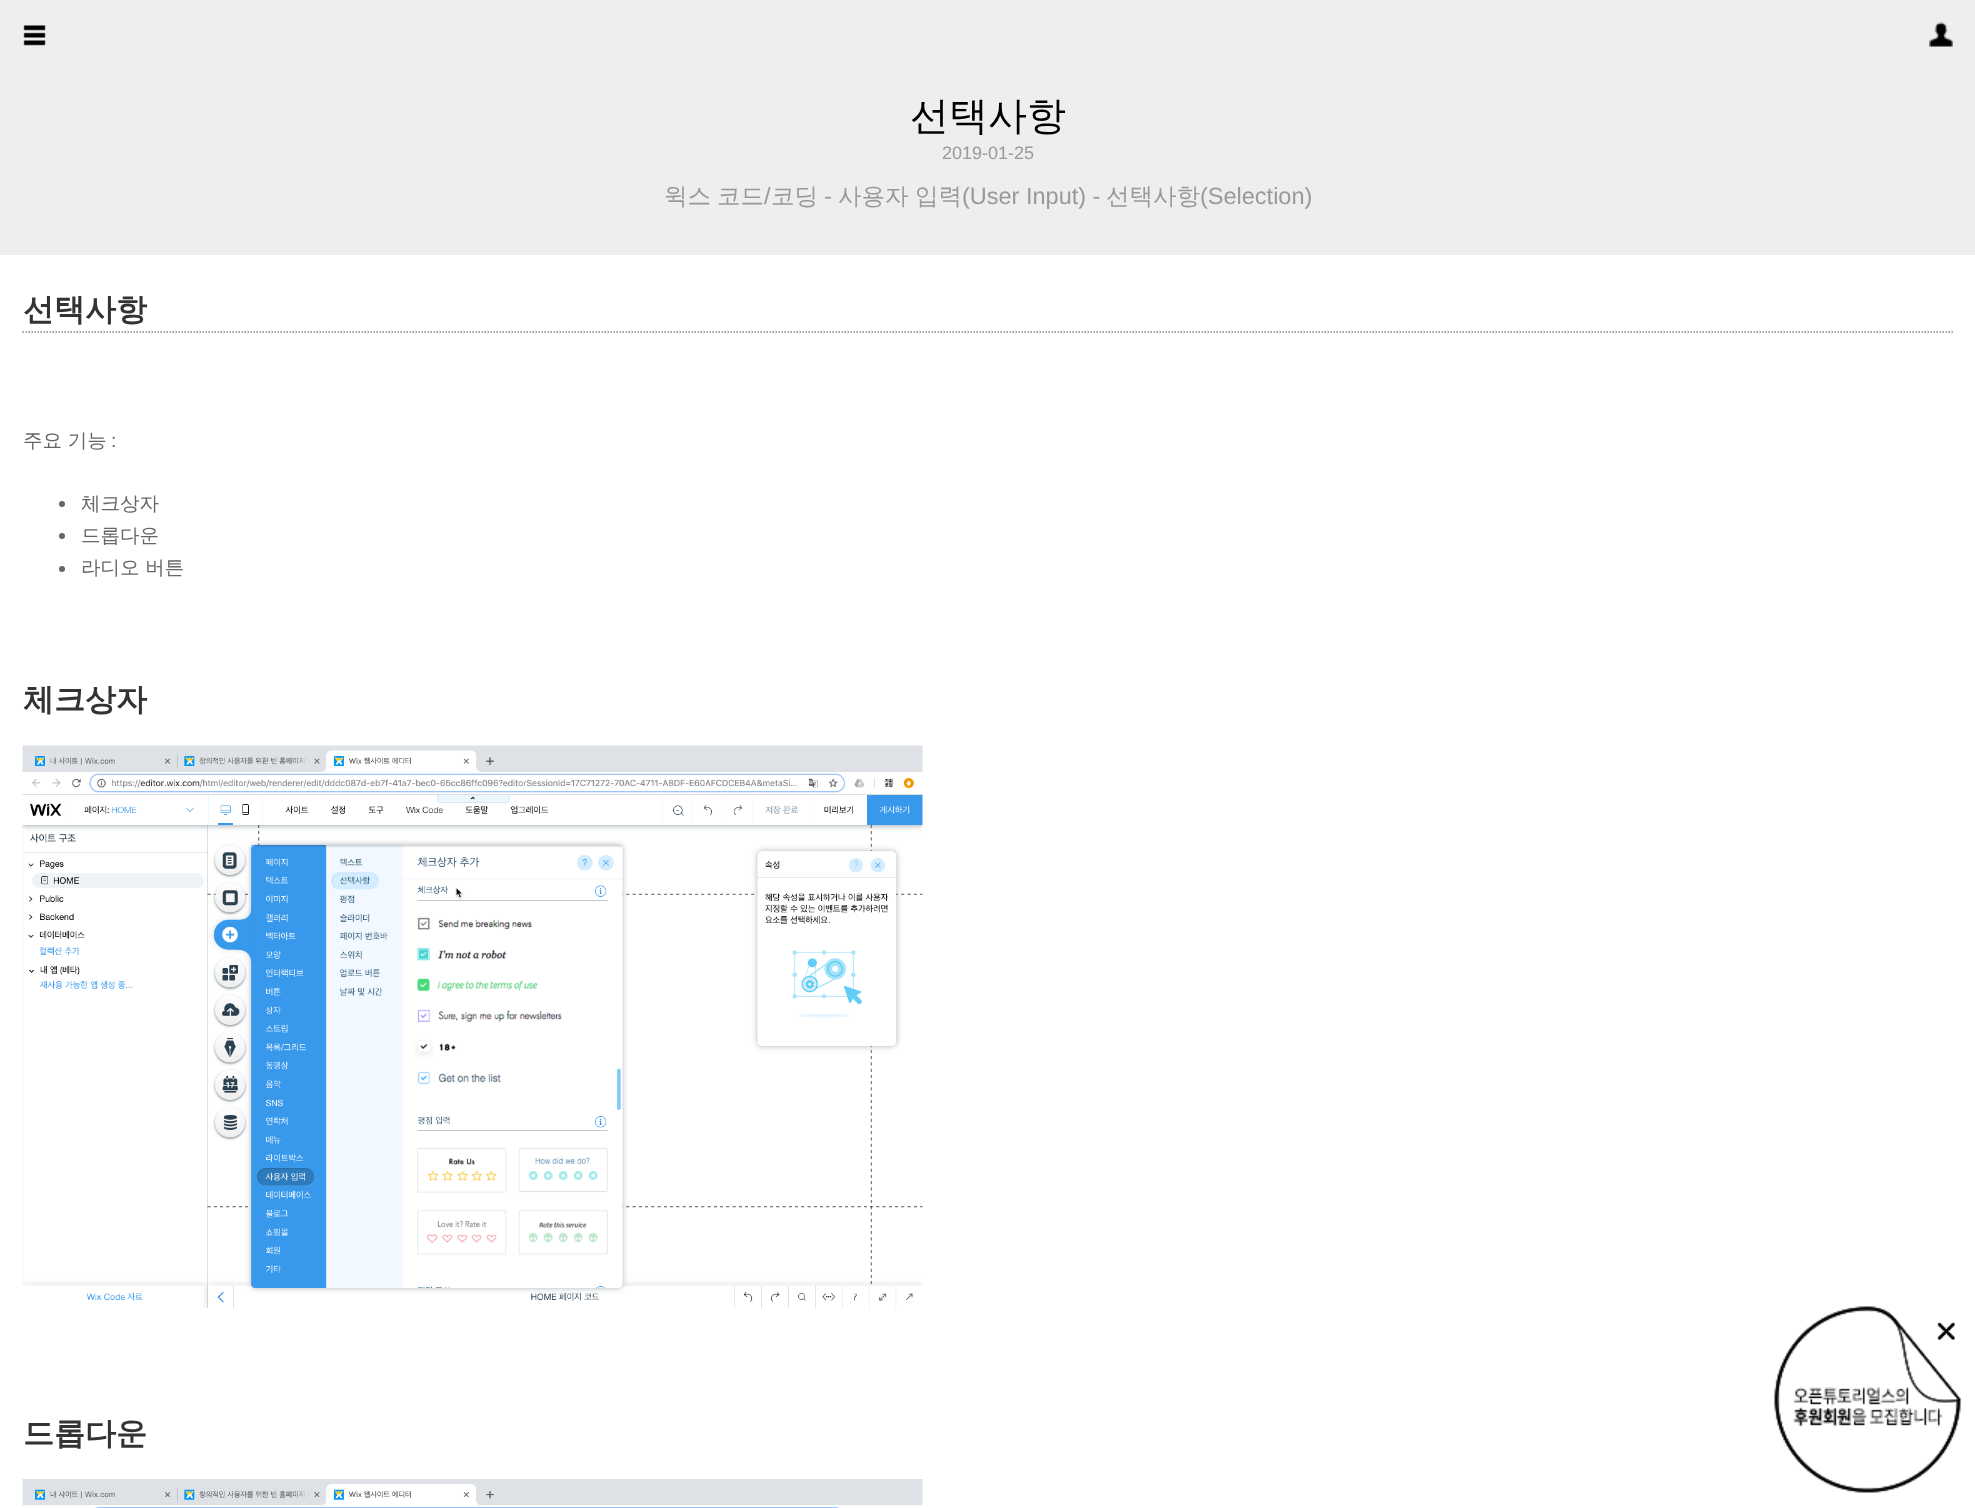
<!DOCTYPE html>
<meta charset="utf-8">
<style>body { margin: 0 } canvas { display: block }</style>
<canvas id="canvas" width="1975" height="1508"></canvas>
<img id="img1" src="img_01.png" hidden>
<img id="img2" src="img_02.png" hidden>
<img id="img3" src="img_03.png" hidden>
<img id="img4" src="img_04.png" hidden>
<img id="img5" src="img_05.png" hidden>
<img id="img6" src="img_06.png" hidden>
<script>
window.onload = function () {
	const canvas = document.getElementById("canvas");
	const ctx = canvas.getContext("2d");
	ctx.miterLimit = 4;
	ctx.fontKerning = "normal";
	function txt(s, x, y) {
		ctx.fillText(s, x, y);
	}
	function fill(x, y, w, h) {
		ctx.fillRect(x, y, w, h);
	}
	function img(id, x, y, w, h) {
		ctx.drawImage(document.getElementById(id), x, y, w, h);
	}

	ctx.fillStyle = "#FFFFFF";
	fill(0, 0, 1975, 1508);
	ctx.fillStyle = "#EEEEEE";
	fill(0, 0, 1975, 255);
	img("img1", 23, 25, 23, 21);
	img("img2", 1929, 22, 24, 25);
	ctx.beginPath();
	ctx.moveTo(22.5, 332);
	ctx.lineTo(1953, 332);
	ctx.strokeStyle = "#858585";
	ctx.lineWidth = 1.5;
	ctx.setLineDash([1.5, 1.5]);
	ctx.stroke();
	ctx.fillStyle = "#666666";
	ctx.beginPath();
	ctx.arc(62, 504, 3, 0, Math.PI * 2);
	ctx.fill();
	ctx.beginPath();
	ctx.arc(62, 536, 3, 0, Math.PI * 2);
	ctx.fill();
	ctx.beginPath();
	ctx.arc(62, 569, 3, 0, Math.PI * 2);
	ctx.fill();
	img("img3", 22, 745, 901, 563);
	img("img4", 22, 1479, 901, 29);
	img("img5", 1774, 1306, 187, 187);
	img("img6", 1937, 1322, 18, 18);
	ctx.font = "500 39px WenQuanYi Zen Hei";
	ctx.fillStyle = "#000000";
	txt("선택사항", 910, 129);
	ctx.font = "18px Liberation Sans";
	ctx.fillStyle = "#999999";
	txt("2019-01-25", 942, 159);
	ctx.font = "500 23.5px WenQuanYi Zen Hei";
	txt("윅스", 664, 204);
	txt("코드", 717, 204);
	ctx.font = "23.5px Liberation Sans";
	txt("/", 764, 204);
	ctx.font = "500 23.5px WenQuanYi Zen Hei";
	txt("코딩", 771, 204);
	ctx.font = "23.5px Liberation Sans";
	txt("-", 824, 204);
	ctx.font = "500 23.5px WenQuanYi Zen Hei";
	txt("사용자", 838, 204);
	txt("입력", 915, 204);
	ctx.font = "23.5px Liberation Sans";
	txt("(User Input) -", 962, 204);
	ctx.font = "500 23.5px WenQuanYi Zen Hei";
	txt("선택사항", 1106, 204);
	ctx.font = "23.5px Liberation Sans";
	txt("(Selection)", 1200, 204);
	ctx.font = "bold 31px WenQuanYi Zen Hei";
	ctx.fillStyle = "#333333";
	txt("선택사항", 23, 320);
	ctx.font = "500 19.5px WenQuanYi Zen Hei";
	ctx.fillStyle = "#666666";
	txt("주요 기능", 23, 447);
	ctx.font = "19.5px Liberation Sans";
	txt(":", 111, 447);
	ctx.font = "500 19.5px WenQuanYi Zen Hei";
	txt("체크상자", 81, 510);
	txt("드롭다운", 81, 542);
	txt("라디오 버튼", 81, 574);
	ctx.font = "bold 31px WenQuanYi Zen Hei";
	ctx.fillStyle = "#333333";
	txt("체크상자", 23, 710);
	txt("드롭다운", 23, 1444);
};
</script>
